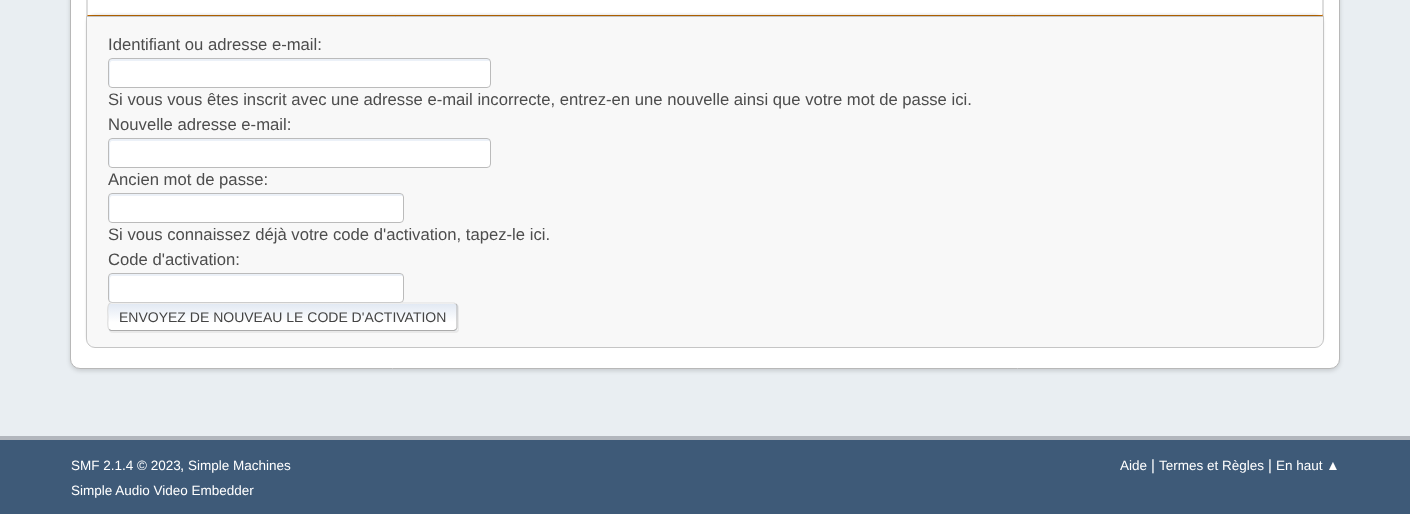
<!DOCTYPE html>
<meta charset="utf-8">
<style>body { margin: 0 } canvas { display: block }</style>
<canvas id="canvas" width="1410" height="514"></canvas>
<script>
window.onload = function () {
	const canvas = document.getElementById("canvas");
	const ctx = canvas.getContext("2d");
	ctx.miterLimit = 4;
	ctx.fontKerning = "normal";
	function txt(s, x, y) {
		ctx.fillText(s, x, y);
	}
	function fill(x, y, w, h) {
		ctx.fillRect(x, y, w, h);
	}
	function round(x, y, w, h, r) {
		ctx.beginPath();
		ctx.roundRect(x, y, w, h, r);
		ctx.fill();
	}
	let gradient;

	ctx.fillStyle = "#E9EEF2";
	fill(0, 0, 1410, 514);
	ctx.fillStyle = "rgba(0, 0, 0, 0.14)";
	ctx.filter = "blur(2px)";
	ctx.beginPath();
	ctx.roundRect(70, -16, 1270, 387, 10);
	ctx.fill();
	ctx.filter = "none";
	ctx.fillStyle = "#FFFFFF";
	ctx.beginPath();
	ctx.roundRect(70.5, -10.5, 1269, 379, 9.5);
	ctx.fill();
	ctx.strokeStyle = "#B8B8B8";
	ctx.stroke();
	ctx.fillStyle = "#DDDDDD";
	ctx.beginPath();
	ctx.moveTo(1324, -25);
	ctx.lineTo(1323, -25);
	ctx.lineTo(1322, -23);
	ctx.lineTo(1322, 14);
	ctx.lineTo(1324, 18);
	ctx.closePath();
	ctx.fill();
	ctx.fillStyle = "#BF6900";
	ctx.beginPath();
	ctx.moveTo(1324, 18);
	ctx.lineTo(1322, 14);
	ctx.lineTo(1322, 15);
	ctx.lineTo(88, 15);
	ctx.lineTo(88, 14);
	ctx.lineTo(86, 18);
	ctx.closePath();
	ctx.fill();
	ctx.fillStyle = "#DDDDDD";
	ctx.beginPath();
	ctx.moveTo(86, 18);
	ctx.lineTo(88, 14);
	ctx.lineTo(88, -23);
	ctx.lineTo(87, -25);
	ctx.lineTo(86, -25);
	ctx.closePath();
	ctx.fill();
	ctx.fillStyle = "rgba(0, 0, 0, 0.1)";
	ctx.filter = "blur(1px)";
	ctx.beginPath();
	ctx.roundRect(86, 14, 1238, 331, 9);
	ctx.fill();
	ctx.filter = "none";
	ctx.fillStyle = "#F8F8F8";
	ctx.beginPath();
	ctx.roundRect(86.5, 16.5, 1237, 331, [0, 0, 8.5, 8.5]);
	ctx.fill();
	ctx.strokeStyle = "#C5C5C5";
	ctx.stroke();
	ctx.fillStyle = "#FFFFFF";
	round(108, 58, 383, 30, 4);
	ctx.fillStyle = "#ECF1F8";
	ctx.beginPath();
	ctx.moveTo(112, 61);
	ctx.lineTo(489, 61);
	ctx.lineTo(490, 61);
	ctx.bezierCurveTo(490, 60, 489, 59, 488, 59);
	ctx.lineTo(112, 59);
	ctx.bezierCurveTo(110, 59, 109, 60, 109, 62);
	ctx.lineTo(109, 84);
	ctx.bezierCurveTo(109, 84, 109, 85, 110, 86);
	ctx.lineTo(110, 64);
	ctx.bezierCurveTo(110, 62, 111, 61, 112, 61);
	ctx.closePath();
	ctx.fill();
	ctx.beginPath();
	ctx.roundRect(108.5, 58.5, 382, 29, 3.5);
	ctx.strokeStyle = "#BBBBBB";
	ctx.stroke();
	ctx.fillStyle = "#FFFFFF";
	round(108, 138, 383, 30, 4);
	ctx.fillStyle = "#ECF1F8";
	ctx.beginPath();
	ctx.moveTo(112, 141);
	ctx.lineTo(489, 141);
	ctx.lineTo(490, 141);
	ctx.bezierCurveTo(490, 140, 489, 139, 488, 139);
	ctx.lineTo(112, 139);
	ctx.bezierCurveTo(110, 139, 109, 140, 109, 142);
	ctx.lineTo(109, 164);
	ctx.bezierCurveTo(109, 164, 109, 165, 110, 166);
	ctx.lineTo(110, 144);
	ctx.bezierCurveTo(110, 142, 111, 141, 112, 141);
	ctx.closePath();
	ctx.fill();
	ctx.beginPath();
	ctx.roundRect(108.5, 138.5, 382, 29, 3.5);
	ctx.stroke();
	ctx.fillStyle = "#FFFFFF";
	round(108, 193, 296, 30, 4);
	ctx.fillStyle = "#ECF1F8";
	ctx.beginPath();
	ctx.moveTo(112, 196);
	ctx.lineTo(401, 196);
	ctx.lineTo(403, 196);
	ctx.bezierCurveTo(403, 195, 402, 194, 400, 194);
	ctx.lineTo(112, 194);
	ctx.bezierCurveTo(110, 194, 109, 195, 109, 196);
	ctx.lineTo(109, 218);
	ctx.bezierCurveTo(109, 219, 109, 220, 110, 221);
	ctx.lineTo(110, 199);
	ctx.bezierCurveTo(110, 197, 111, 196, 112, 196);
	ctx.closePath();
	ctx.fill();
	ctx.beginPath();
	ctx.roundRect(108.5, 193.5, 295, 29, 3.5);
	ctx.stroke();
	ctx.fillStyle = "#FFFFFF";
	round(108, 273, 296, 30, 4);
	ctx.fillStyle = "#ECF1F8";
	ctx.beginPath();
	ctx.moveTo(112, 276);
	ctx.lineTo(401, 276);
	ctx.lineTo(403, 276);
	ctx.bezierCurveTo(403, 275, 402, 274, 400, 274);
	ctx.lineTo(112, 274);
	ctx.bezierCurveTo(110, 274, 109, 275, 109, 276);
	ctx.lineTo(109, 298);
	ctx.bezierCurveTo(109, 299, 109, 300, 110, 301);
	ctx.lineTo(110, 279);
	ctx.bezierCurveTo(110, 277, 111, 276, 112, 276);
	ctx.closePath();
	ctx.fill();
	ctx.beginPath();
	ctx.roundRect(108.5, 273.5, 295, 29, 3.5);
	ctx.stroke();
	ctx.fillStyle = "rgba(221, 221, 221, 0.57)";
	ctx.filter = "blur(0.5px)";
	ctx.beginPath();
	ctx.roundRect(109, 304, 350, 29, 4);
	ctx.fill();
	ctx.filter = "none";
	ctx.fillStyle = "#FFFFFF";
	round(108, 303, 350, 28, 4);
	ctx.save();
	ctx.beginPath();
	ctx.roundRect(108, 303, 350, 28, 4);
	ctx.clip();
	gradient = ctx.createLinearGradient(283, 304, 283, 330);
	gradient.addColorStop(0, "#E2E9F3");
	gradient.addColorStop(0.7, "#FFFFFF");
	ctx.fillStyle = gradient;
	fill(108, 304, 350, 26);
	gradient = ctx.createLinearGradient(283, 330, 283, 356);
	gradient.addColorStop(0, "#E2E9F3");
	gradient.addColorStop(0.7, "#FFFFFF");
	ctx.fillStyle = gradient;
	fill(108, 330, 350, 1);
	ctx.restore();
	ctx.beginPath();
	ctx.moveTo(456, 304);
	ctx.bezierCurveTo(456.5, 304.5, 457, 305.5, 457, 306);
	ctx.lineTo(457, 327.5);
	ctx.bezierCurveTo(457, 328.5, 456.5, 329, 456, 329.5);
	ctx.lineWidth = 1.2;
	ctx.stroke();
	ctx.beginPath();
	ctx.moveTo(456, 329.5);
	ctx.lineTo(454, 330.5);
	ctx.lineTo(111, 330.5);
	ctx.lineTo(109, 329.5);
	ctx.strokeStyle = "#AAAAAA";
	ctx.stroke();
	ctx.beginPath();
	ctx.moveTo(109, 329.5);
	ctx.bezierCurveTo(107, 327.5, 108, 319.5, 108, 317);
	ctx.bezierCurveTo(108, 314.5, 106.5, 305.5, 109.5, 303.5);
	ctx.lineTo(111, 303);
	ctx.lineTo(454, 303);
	ctx.lineTo(456, 304);
	ctx.strokeStyle = "#DDDDDD";
	ctx.stroke();
	ctx.fillStyle = "#3E5A78";
	fill(0, 440, 1410, 74);
	ctx.fillStyle = "#B2B6BD";
	fill(0, 436, 1410, 4);
	ctx.font = "16.67px Liberation Sans";
	ctx.fillStyle = "#4D4D4D";
	txt("Identifiant ou adresse e-mail:", 108, 50);
	txt("Si vous vous êtes inscrit avec une adresse e-mail incorrecte, entrez-en une nouvelle ainsi que votre mot de passe ici.", 108, 105);
	txt("Nouvelle adresse e-mail:", 108, 130);
	txt("Ancien mot de passe:", 108, 185);
	txt("Si vous connaissez déjà votre code d'activation, tapez-le ici.", 108, 240);
	txt("Code d'activation:", 108, 265);
	ctx.font = "14px Liberation Sans";
	ctx.fillStyle = "#444444";
	txt("ENVOYEZ DE NOUVEAU LE CODE D'ACTIVATION", 119, 322);
	ctx.font = "13.5px Liberation Sans";
	ctx.fillStyle = "#FFFFFF";
	txt("SMF 2.1.4 © 2023", 71, 470);
	ctx.font = "15px Liberation Sans";
	txt(",", 180, 470);
	ctx.font = "13.5px Liberation Sans";
	txt("Simple Machines", 188, 470);
	txt("Simple Audio Video Embedder", 71, 495);
	txt("Aide", 1120, 470);
	ctx.font = "15px Liberation Sans";
	txt("|", 1151, 470);
	ctx.font = "13.5px Liberation Sans";
	txt("Termes et Règles", 1159, 470);
	ctx.font = "15px Liberation Sans";
	txt("|", 1268, 470);
	ctx.font = "13.5px Liberation Sans";
	txt("En haut ▲", 1276, 470);
};
</script>
